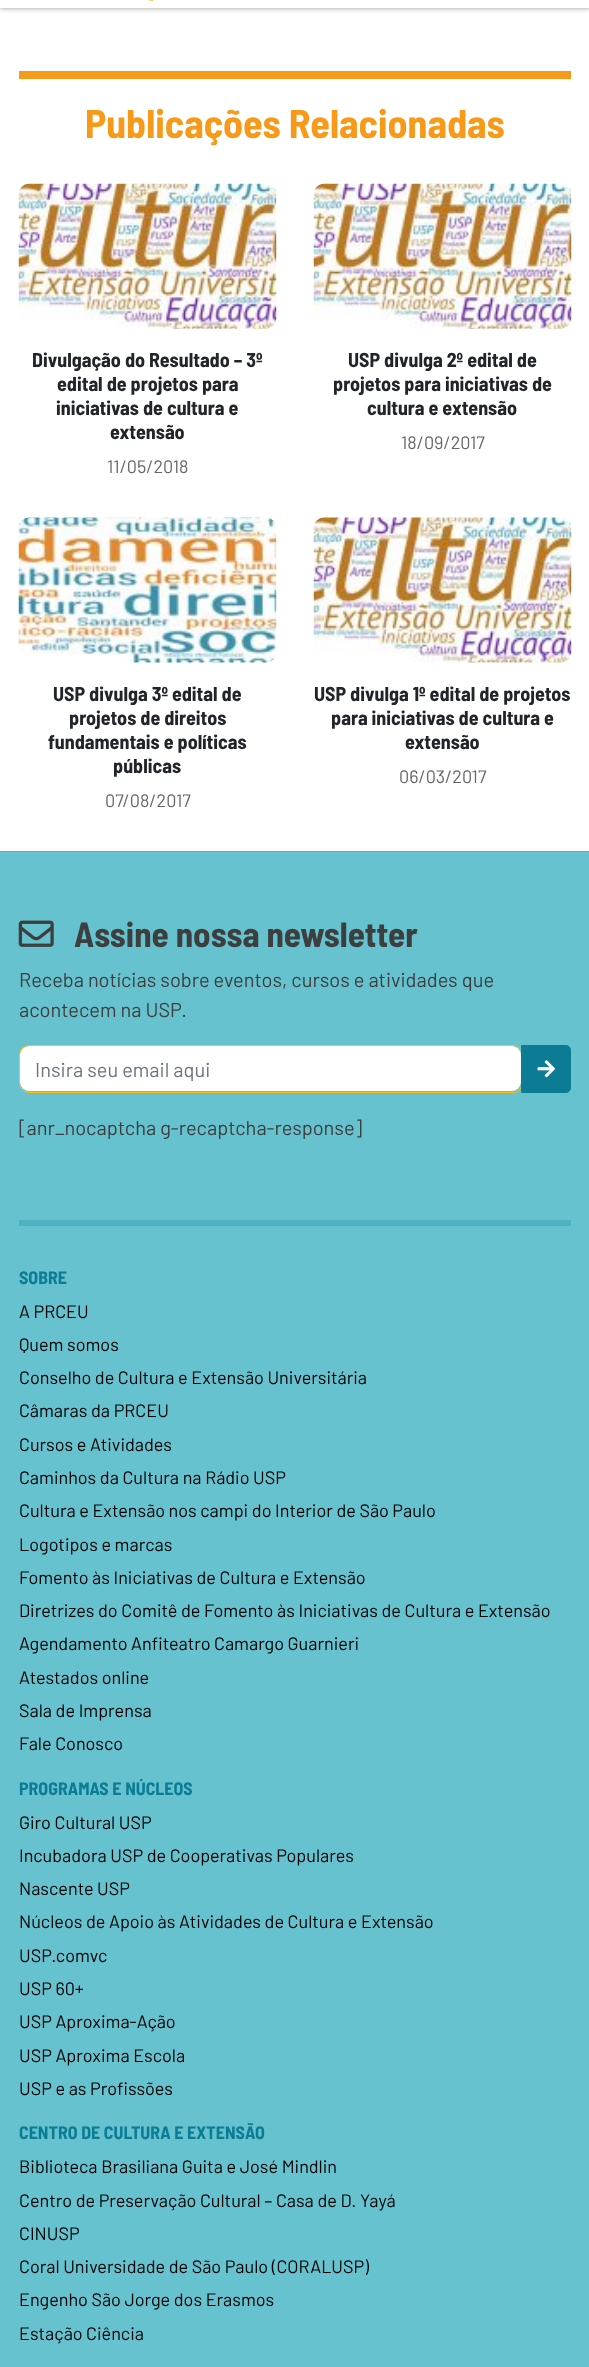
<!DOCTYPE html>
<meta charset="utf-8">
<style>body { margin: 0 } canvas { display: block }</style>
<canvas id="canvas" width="589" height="2367"></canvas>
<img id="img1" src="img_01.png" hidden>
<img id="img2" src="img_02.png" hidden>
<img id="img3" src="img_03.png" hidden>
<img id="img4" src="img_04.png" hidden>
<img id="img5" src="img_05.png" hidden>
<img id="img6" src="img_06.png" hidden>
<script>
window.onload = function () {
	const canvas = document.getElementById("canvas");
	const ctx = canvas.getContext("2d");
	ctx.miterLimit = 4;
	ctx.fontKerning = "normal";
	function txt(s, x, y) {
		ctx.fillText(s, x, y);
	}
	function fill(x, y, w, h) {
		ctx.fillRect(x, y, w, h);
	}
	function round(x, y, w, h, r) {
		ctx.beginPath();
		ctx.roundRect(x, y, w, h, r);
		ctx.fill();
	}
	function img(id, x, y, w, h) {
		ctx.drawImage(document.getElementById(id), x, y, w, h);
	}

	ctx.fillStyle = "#FFFFFF";
	fill(0, 0, 589, 2367);
	ctx.fillStyle = "rgba(0, 0, 0, 0.3)";
	ctx.filter = "blur(2px)";
	ctx.beginPath();
	ctx.rect(0, -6, 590, 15);
	ctx.fill();
	ctx.filter = "none";
	ctx.fillStyle = "#FFFFFF";
	fill(0, 0, 589, 8);
	img("img1", 147, 0, 7, 1);
	ctx.fillStyle = "#F89A19";
	fill(19, 71, 552, 8);
	img("img2", 18, 183, 259, 146);
	img("img2", 313, 183, 259, 146);
	img("img3", 18, 517, 259, 146);
	img("img4", 313, 517, 259, 146);
	ctx.fillStyle = "#66C2CF";
	fill(0, 852, 589, 1515);
	ctx.fillStyle = "#49B6C6";
	fill(0, 851, 589, 1);
	img("img5", 18, 920, 36, 27);
	ctx.fillStyle = "#FFFFFF";
	round(20, 1046, 501, 45, 9);
	ctx.beginPath();
	ctx.roundRect(19.5, 1045.5, 503, 47, 9.5);
	ctx.strokeStyle = "#FFC107";
	ctx.stroke();
	ctx.fillStyle = "#0B7C93";
	ctx.beginPath();
	ctx.roundRect(521.5, 1045.5, 49, 47, [0, 4.5, 4.5, 0]);
	ctx.fill();
	ctx.strokeStyle = "#0B7C93";
	ctx.stroke();
	img("img6", 537, 1060, 18, 18);
	ctx.fillStyle = "#4FB1C0";
	fill(19, 1220, 552, 6);
	ctx.font = "bold 40px Barlow Semi Condensed";
	ctx.fillStyle = "#F89A19";
	txt("Publicações Relacionadas", 85, 138);
	ctx.font = "bold 20px Barlow Semi Condensed";
	ctx.fillStyle = "#212529";
	txt("Divulgação do Resultado – 3º", 32, 367);
	txt("edital de projetos para", 57, 391);
	txt("iniciativas de cultura e", 56, 415);
	txt("extensão", 110, 439);
	ctx.font = "18px Barlow";
	ctx.fillStyle = "#666666";
	txt("11/05/2018", 107, 473);
	ctx.font = "bold 20px Barlow Semi Condensed";
	ctx.fillStyle = "#212529";
	txt("USP divulga 2º edital de", 348, 367);
	txt("projetos para iniciativas de", 333, 391);
	txt("cultura e extensão", 367, 415);
	ctx.font = "18px Barlow";
	ctx.fillStyle = "#666666";
	txt("18/09/2017", 401, 449);
	ctx.font = "bold 20px Barlow Semi Condensed";
	ctx.fillStyle = "#212529";
	txt("USP divulga 3º edital de", 53, 701);
	txt("projetos de direitos", 69, 725);
	txt("fundamentais e políticas", 48, 749);
	txt("públicas", 113, 773);
	ctx.font = "18px Barlow";
	ctx.fillStyle = "#666666";
	txt("07/08/2017", 105, 807);
	ctx.font = "bold 20px Barlow Semi Condensed";
	ctx.fillStyle = "#212529";
	txt("USP divulga 1º edital de projetos", 314, 701);
	txt("para iniciativas de cultura e", 331, 725);
	txt("extensão", 405, 749);
	ctx.font = "18px Barlow";
	ctx.fillStyle = "#666666";
	txt("06/03/2017", 399, 783);
	ctx.font = "bold 35px Barlow Semi Condensed";
	ctx.fillStyle = "#3D3F3F";
	txt("Assine nossa newsletter", 74, 947);
	ctx.font = "20px Barlow";
	txt("Receba notícias sobre eventos, cursos e atividades que", 19, 987);
	txt("acontecem na USP.", 19, 1017);
	ctx.fillStyle = "#6C757D";
	txt("Insira seu email aqui", 35, 1077);
	ctx.fillStyle = "#3D3F3F";
	txt("[anr_nocaptcha g-recaptcha-response]", 19, 1135);
	ctx.font = "bold 18px Barlow Semi Condensed";
	ctx.fillStyle = "#0B7C93";
	txt("SOBRE", 19, 1284);
	ctx.font = "18px Barlow";
	ctx.fillStyle = "#000000";
	txt("A PRCEU", 19, 1318);
	txt("Quem somos", 19, 1351);
	txt("Conselho de Cultura e Extensão Universitária", 19, 1384);
	txt("Câmaras da PRCEU", 19, 1417);
	txt("Cursos e Atividades", 19, 1451);
	txt("Caminhos da Cultura na Rádio USP", 19, 1484);
	txt("Cultura e Extensão nos campi do Interior de São Paulo", 19, 1517);
	txt("Logotipos e marcas", 19, 1551);
	txt("Fomento às Iniciativas de Cultura e Extensão", 19, 1584);
	txt("Diretrizes do Comitê de Fomento às Iniciativas de Cultura e Extensão", 19, 1617);
	txt("Agendamento Anfiteatro Camargo Guarnieri", 19, 1650);
	txt("Atestados online", 19, 1684);
	txt("Sala de Imprensa", 19, 1717);
	txt("Fale Conosco", 19, 1750);
	ctx.font = "bold 18px Barlow Semi Condensed";
	ctx.fillStyle = "#0B7C93";
	txt("PROGRAMAS E NÚCLEOS", 19, 1795);
	ctx.font = "18px Barlow";
	ctx.fillStyle = "#000000";
	txt("Giro Cultural USP", 19, 1829);
	txt("Incubadora USP de Cooperativas Populares", 19, 1862);
	txt("Nascente USP", 19, 1895);
	txt("Núcleos de Apoio às Atividades de Cultura e Extensão", 19, 1928);
	txt("USP.comvc", 19, 1962);
	txt("USP 60+", 19, 1995);
	txt("USP Aproxima-Ação", 19, 2028);
	txt("USP Aproxima Escola", 19, 2062);
	txt("USP e as Profissões", 19, 2095);
	ctx.font = "bold 18px Barlow Semi Condensed";
	ctx.fillStyle = "#0B7C93";
	txt("CENTRO DE CULTURA E EXTENSÃO", 19, 2139);
	ctx.font = "18px Barlow";
	ctx.fillStyle = "#000000";
	txt("Biblioteca Brasiliana Guita e José Mindlin", 19, 2173);
	txt("Centro de Preservação Cultural – Casa de D. Yayá", 19, 2207);
	txt("CINUSP", 19, 2240);
	txt("Coral Universidade de São Paulo (CORALUSP)", 19, 2273);
	txt("Engenho São Jorge dos Erasmos", 19, 2306);
	txt("Estação Ciência", 19, 2340);
};
</script>
